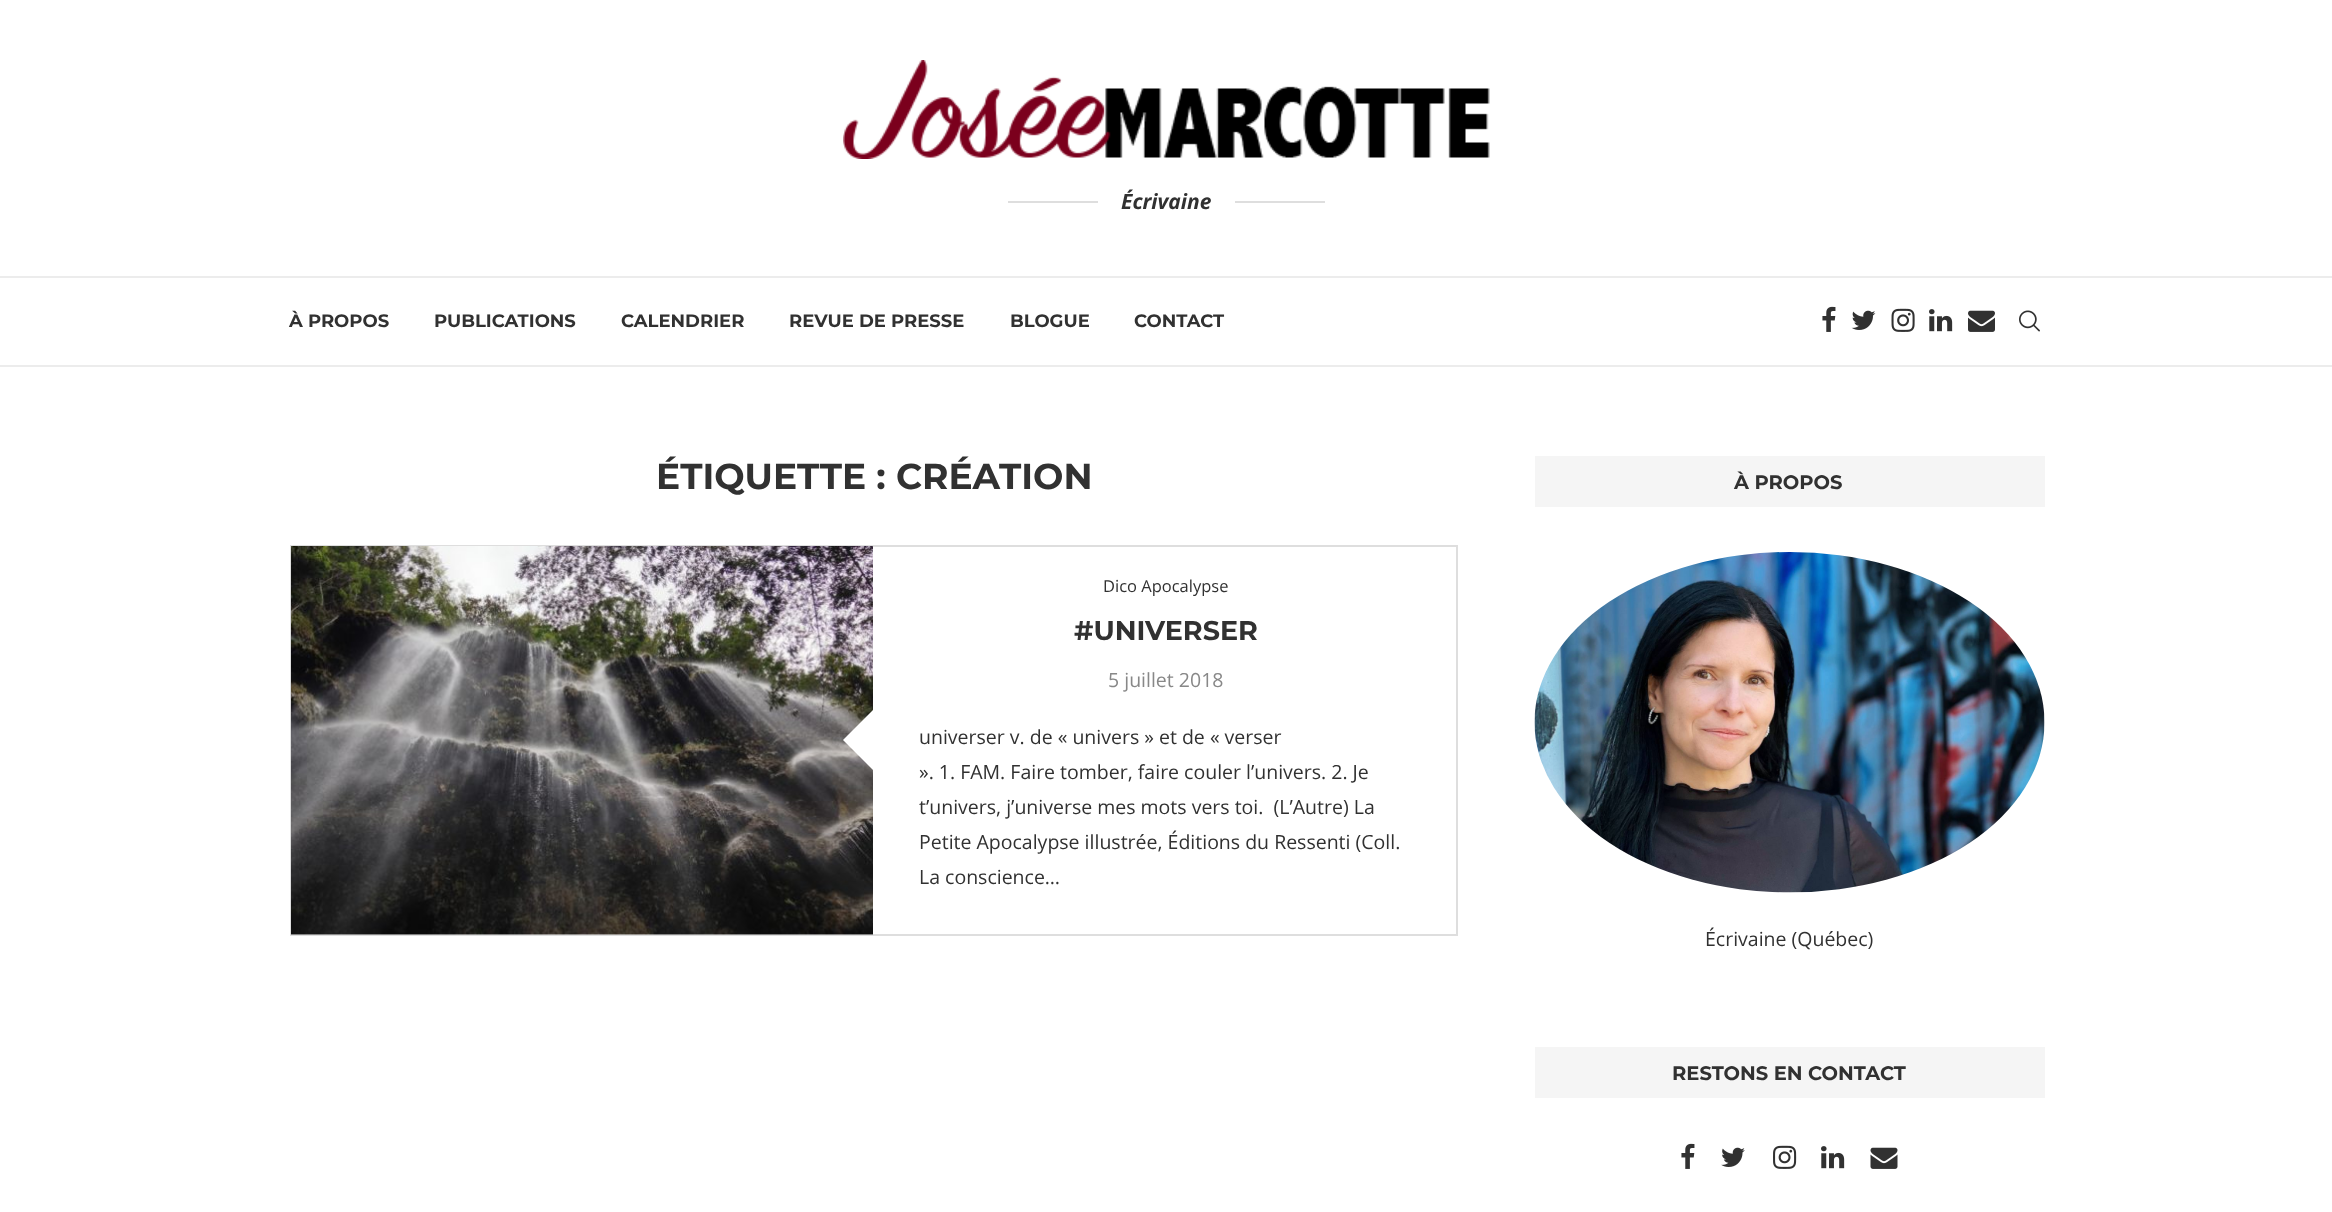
<!DOCTYPE html>
<meta charset="utf-8">
<style>body { margin: 0 } canvas { display: block }</style>
<canvas id="canvas" width="2332" height="1212"></canvas>
<img id="img1" src="img_01.png" hidden>
<img id="img2" src="img_02.png" hidden>
<img id="img3" src="img_03.png" hidden>
<img id="img4" src="img_04.png" hidden>
<img id="img5" src="img_05.png" hidden>
<img id="img6" src="img_06.png" hidden>
<img id="img7" src="img_07.png" hidden>
<img id="img8" src="img_08.png" hidden>
<img id="img9" src="img_09.png" hidden>
<img id="img10" src="img_10.png" hidden>
<img id="img11" src="img_11.png" hidden>
<img id="img12" src="img_12.png" hidden>
<script>
window.onload = function () {
	const canvas = document.getElementById("canvas");
	const ctx = canvas.getContext("2d");
	ctx.miterLimit = 4;
	ctx.fontKerning = "normal";
	function txt(s, x, y) {
		ctx.fillText(s, x, y);
	}
	function fill(x, y, w, h) {
		ctx.fillRect(x, y, w, h);
	}
	function img(id, x, y, w, h) {
		ctx.drawImage(document.getElementById(id), x, y, w, h);
	}

	ctx.fillStyle = "#FFFFFF";
	fill(0, 0, 2332, 1212);
	img("img1", 843, 60, 647, 99);
	ctx.fillStyle = "#DEDEDE";
	fill(1008, 201, 90, 2);
	fill(1235, 201, 90, 2);
	ctx.fillStyle = "#ECECEC";
	fill(0, 276, 2332, 2);
	fill(0, 365, 2332, 2);
	img("img2", 1822, 306, 14, 26);
	img("img3", 1851, 310, 25, 20);
	img("img4", 1891, 308, 24, 24);
	img("img5", 1929, 309, 24, 23);
	img("img6", 1968, 310, 27, 22);
	img("img7", 2019, 310, 21, 22);
	ctx.strokeStyle = "#DEDEDE";
	ctx.lineWidth = 2;
	ctx.strokeRect(291, 546, 1166, 389);
	ctx.fillStyle = "#F5F5F5";
	fill(291, 934, 582, 1);
	img("img8", 291, 546, 582, 389);
	ctx.fillStyle = "#FFFFFF";
	ctx.beginPath();
	ctx.moveTo(873, 710);
	ctx.lineTo(873, 770);
	ctx.lineTo(843, 740);
	ctx.closePath();
	ctx.fill();
	ctx.fillStyle = "#F5F5F5";
	fill(1535, 456, 510, 51);
	img("img9", 1534, 552, 511, 341);
	fill(1535, 1047, 510, 51);
	img("img2", 1681, 1143, 14, 26);
	img("img10", 1721, 1147, 24, 20);
	img("img11", 1773, 1145, 24, 24);
	img("img5", 1821, 1146, 24, 23);
	img("img12", 1870, 1147, 28, 22);
	ctx.font = "italic bold 21px Open Sans";
	ctx.fillStyle = "#313131";
	txt("Écrivaine", 1121, 209);
	ctx.font = "bold 18px Montserrat";
	txt("À PROPOS", 289, 327);
	txt("PUBLICATIONS", 434, 327);
	txt("CALENDRIER", 621, 327);
	txt("REVUE DE PRESSE", 789, 327);
	txt("BLOGUE", 1010, 327);
	txt("CONTACT", 1134, 327);
	ctx.font = "bold 36px Montserrat";
	txt("ÉTIQUETTE : CRÉATION", 656, 489);
	ctx.font = "16.5px Open Sans";
	txt("Dico Apocalypse", 1103, 592);
	ctx.font = "bold 27px Montserrat";
	txt("#UNIVERSER", 1074, 640);
	ctx.font = "19.5px Open Sans";
	ctx.fillStyle = "#888888";
	txt("5 juillet 2018", 1108, 687);
	ctx.fillStyle = "#313131";
	txt("universer v. de « univers » et de « verser", 919, 744);
	txt("». 1. FAM. Faire tomber, faire couler l’univers. 2. Je", 919, 779);
	txt("t’univers, j’universe mes mots vers toi.  (L’Autre) La", 919, 814);
	txt("Petite Apocalypse illustrée, Éditions du Ressenti (Coll.", 919, 849);
	txt("La conscience…", 919, 884);
	ctx.font = "bold 19.5px Montserrat";
	txt("À PROPOS", 1734, 489);
	ctx.font = "19.5px Open Sans";
	txt("Écrivaine (Québec)", 1705, 946);
	ctx.font = "bold 19.5px Montserrat";
	txt("RESTONS EN CONTACT", 1672, 1080);
};
</script>
